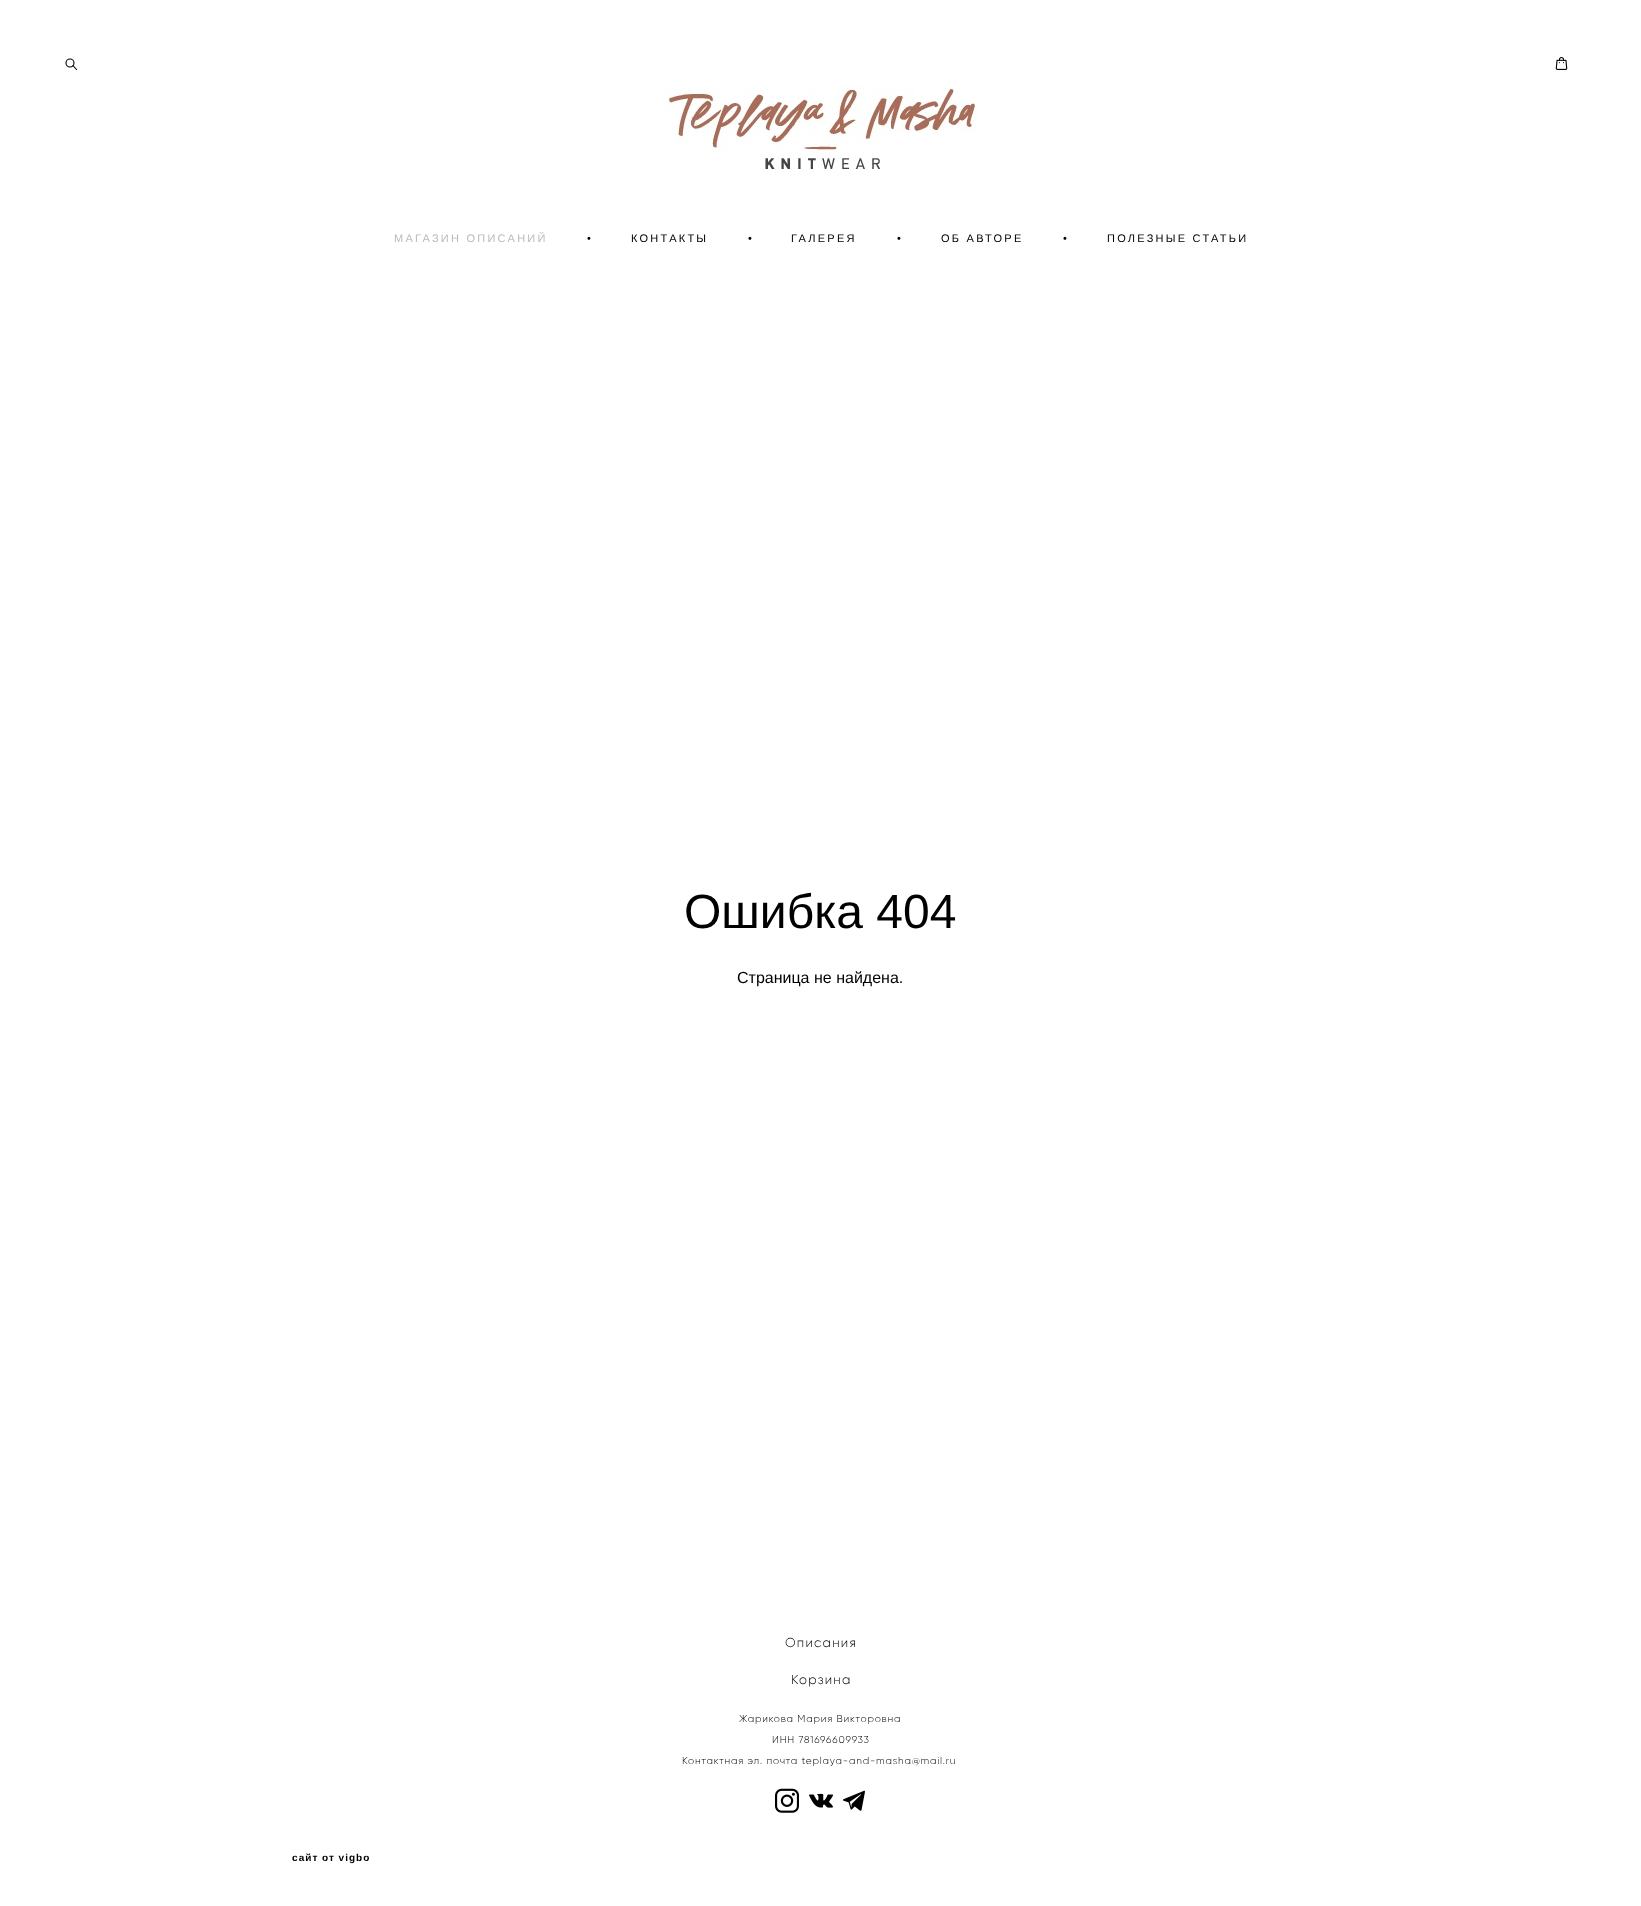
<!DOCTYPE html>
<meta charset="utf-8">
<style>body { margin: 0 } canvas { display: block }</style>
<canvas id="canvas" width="1641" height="1906"></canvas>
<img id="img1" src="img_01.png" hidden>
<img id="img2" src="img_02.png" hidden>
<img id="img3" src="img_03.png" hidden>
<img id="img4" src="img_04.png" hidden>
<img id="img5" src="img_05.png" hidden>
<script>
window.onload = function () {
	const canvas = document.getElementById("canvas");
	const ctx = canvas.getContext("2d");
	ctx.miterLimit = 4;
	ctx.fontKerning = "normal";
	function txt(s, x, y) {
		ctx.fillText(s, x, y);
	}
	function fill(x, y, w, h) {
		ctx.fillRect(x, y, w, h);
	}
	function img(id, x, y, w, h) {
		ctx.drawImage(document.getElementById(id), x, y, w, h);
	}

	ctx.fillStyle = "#FFFFFF";
	fill(0, 0, 1641, 1906);
	ctx.beginPath();
	ctx.arc(70, 63, 4, 0, Math.PI * 2);
	ctx.strokeStyle = "#000000";
	ctx.lineWidth = 1.1;
	ctx.stroke();
	ctx.beginPath();
	ctx.moveTo(73, 65.5);
	ctx.lineTo(76.5, 69.5);
	ctx.lineCap = "round";
	ctx.lineJoin = "round";
	ctx.stroke();
	img("img1", 1555, 57, 13, 13);
	img("img2", 664, 85, 314, 84);
	img("img3", 775, 1788, 24, 25);
	img("img4", 809, 1793, 24, 15);
	img("img5", 843, 1790, 22, 21);
	ctx.letterSpacing = "2.25px";
	ctx.font = "11px Liberation Sans";
	ctx.fillStyle = "#BABABA";
	txt("МАГАЗИН ОПИСАНИЙ", 394, 242);
	ctx.letterSpacing = "0px";
	ctx.fillStyle = "#000000";
	txt("•", 587, 242);
	ctx.letterSpacing = "2.25px";
	txt("КОНТАКТЫ", 631, 242);
	ctx.letterSpacing = "0px";
	txt("•", 748, 242);
	ctx.letterSpacing = "2.25px";
	txt("ГАЛЕРЕЯ", 791, 242);
	ctx.letterSpacing = "0px";
	txt("•", 897, 242);
	ctx.letterSpacing = "2.25px";
	txt("ОБ АВТОРЕ", 941, 242);
	ctx.letterSpacing = "0px";
	txt("•", 1063, 242);
	ctx.letterSpacing = "2.25px";
	txt("ПОЛЕЗНЫЕ СТАТЬИ", 1107, 242);
	ctx.letterSpacing = "0px";
	ctx.font = "48px Liberation Sans";
	txt("Ошибка 404", 684, 928);
	ctx.font = "16px Liberation Sans";
	txt("Страница не найдена.", 737, 983);
	ctx.letterSpacing = "1.25px";
	ctx.font = "300 13px Gilroy";
	txt("Описания", 785, 1647);
	txt("Корзина", 791, 1684);
	ctx.letterSpacing = "0.8px";
	ctx.font = "300 10px Gilroy";
	txt("Жарикова Мария Викторовна", 739, 1722);
	txt("ИНН 781696609933", 772, 1743);
	txt("Контактная эл. почта teplaya-and-masha@mail.ru", 682, 1764);
	ctx.letterSpacing = "1px";
	ctx.font = "bold 10px Liberation Sans";
	txt("сайт от vigbo", 292, 1861);
};
</script>
